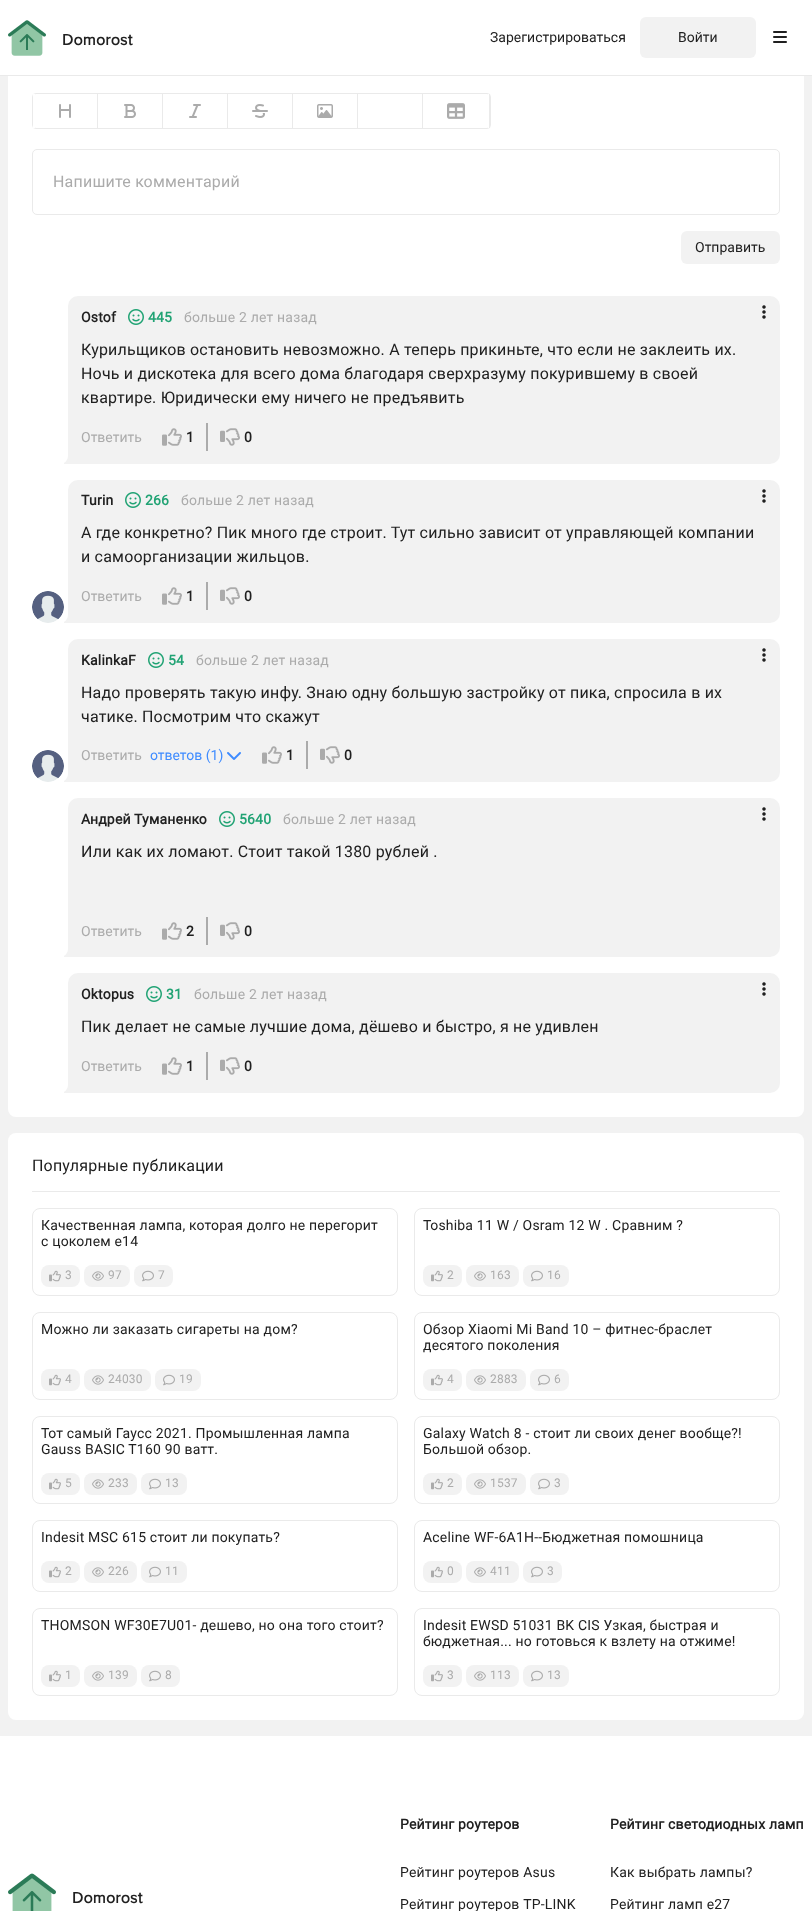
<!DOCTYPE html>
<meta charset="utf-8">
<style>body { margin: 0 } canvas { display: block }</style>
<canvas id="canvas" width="812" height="1911"></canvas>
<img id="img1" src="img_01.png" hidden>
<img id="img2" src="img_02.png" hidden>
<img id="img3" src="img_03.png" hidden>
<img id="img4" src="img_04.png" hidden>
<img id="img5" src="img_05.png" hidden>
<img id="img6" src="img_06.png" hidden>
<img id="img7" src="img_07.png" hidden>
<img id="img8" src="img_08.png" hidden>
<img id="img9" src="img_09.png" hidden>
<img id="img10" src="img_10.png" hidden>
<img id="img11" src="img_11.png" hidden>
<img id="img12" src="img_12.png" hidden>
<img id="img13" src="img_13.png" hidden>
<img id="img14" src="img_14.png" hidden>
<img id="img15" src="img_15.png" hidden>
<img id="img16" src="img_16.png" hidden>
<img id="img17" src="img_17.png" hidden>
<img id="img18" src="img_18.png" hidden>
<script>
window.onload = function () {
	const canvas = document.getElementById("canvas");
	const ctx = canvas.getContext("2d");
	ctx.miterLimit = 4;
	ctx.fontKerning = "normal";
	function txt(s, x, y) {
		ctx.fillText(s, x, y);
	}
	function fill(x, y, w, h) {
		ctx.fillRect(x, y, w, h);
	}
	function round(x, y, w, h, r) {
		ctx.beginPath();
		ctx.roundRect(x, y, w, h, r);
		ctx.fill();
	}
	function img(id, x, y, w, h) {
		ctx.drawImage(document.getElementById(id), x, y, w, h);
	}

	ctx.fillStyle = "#F2F2F2";
	fill(0, 0, 812, 1911);
	ctx.fillStyle = "#FFFFFF";
	round(8, 34, 796, 1083, 8);
	fill(0, 0, 812, 75);
	ctx.fillStyle = "#EAEAEA";
	fill(0, 75, 812, 1);
	img("img1", 8, 20, 38, 36);
	ctx.fillStyle = "#F2F2F2";
	round(640, 17, 116, 41, 6);
	img("img2", 773, 31, 14, 12);
	ctx.beginPath();
	ctx.roundRect(32.5, 93.5, 458, 35, 3.5);
	ctx.strokeStyle = "#EAEAEA";
	ctx.stroke();
	ctx.fillStyle = "#FFFFFF";
	fill(33, 94, 2, 34);
	ctx.fillStyle = "#EAEAEA";
	fill(97, 94, 1, 34);
	img("img3", 59, 104, 12, 14);
	fill(162, 94, 1, 34);
	img("img4", 124, 104, 12, 14);
	fill(227, 94, 1, 34);
	img("img5", 189, 104, 12, 14);
	fill(292, 94, 1, 34);
	img("img6", 252, 104, 16, 14);
	fill(357, 94, 1, 34);
	img("img7", 317, 104, 16, 14);
	fill(422, 94, 1, 34);
	ctx.fillStyle = "#FFFFFF";
	fill(488, 94, 1, 34);
	ctx.fillStyle = "#EAEAEA";
	fill(489, 94, 1, 34);
	img("img8", 447, 103, 18, 16);
	ctx.beginPath();
	ctx.roundRect(32.5, 149.5, 747, 65, 4.5);
	ctx.stroke();
	ctx.fillStyle = "#F2F2F2";
	round(681, 231, 99, 33, 6);
	fill(64, 456, 4, 8);
	ctx.fillStyle = "#FFFFFF";
	ctx.beginPath();
	ctx.roundRect(32, 280, 36, 184, [0, 0, 8, 0]);
	ctx.fill();
	ctx.fillStyle = "#F2F2F2";
	ctx.beginPath();
	ctx.roundRect(68, 296, 712, 168, [10, 10, 10, 0]);
	ctx.fill();
	img("img9", 128, 309, 16, 16);
	img("img10", 762, 305, 4, 14);
	img("img11", 162, 428, 20, 18);
	ctx.fillStyle = "#ABABAB";
	fill(206, 423, 2, 28);
	img("img12", 220, 428, 20, 18);
	ctx.fillStyle = "#F2F2F2";
	fill(64, 615, 4, 8);
	ctx.fillStyle = "#FFFFFF";
	ctx.beginPath();
	ctx.roundRect(32, 464, 36, 159, [0, 0, 8, 0]);
	ctx.fill();
	img("img13", 32, 591, 32, 32);
	ctx.fillStyle = "#F2F2F2";
	ctx.beginPath();
	ctx.roundRect(68, 480, 712, 143, [10, 10, 10, 0]);
	ctx.fill();
	img("img9", 125, 492, 16, 16);
	img("img10", 762, 489, 4, 14);
	img("img11", 162, 587, 20, 18);
	ctx.fillStyle = "#ABABAB";
	fill(206, 582, 2, 28);
	img("img12", 220, 587, 20, 18);
	ctx.fillStyle = "#F2F2F2";
	fill(64, 774, 4, 8);
	ctx.fillStyle = "#FFFFFF";
	ctx.beginPath();
	ctx.roundRect(32, 623, 36, 159, [0, 0, 8, 0]);
	ctx.fill();
	img("img13", 32, 750, 32, 32);
	ctx.fillStyle = "#F2F2F2";
	ctx.beginPath();
	ctx.roundRect(68, 639, 712, 143, [10, 10, 10, 0]);
	ctx.fill();
	img("img9", 148, 652, 16, 16);
	img("img10", 762, 648, 4, 14);
	img("img14", 227, 752, 14, 8);
	img("img11", 262, 746, 20, 18);
	ctx.fillStyle = "#ABABAB";
	fill(306, 741, 2, 28);
	img("img12", 320, 746, 20, 18);
	ctx.fillStyle = "#F2F2F2";
	fill(64, 949, 4, 8);
	ctx.fillStyle = "#FFFFFF";
	ctx.beginPath();
	ctx.roundRect(32, 782, 36, 175, [0, 0, 8, 0]);
	ctx.fill();
	ctx.fillStyle = "#F2F2F2";
	ctx.beginPath();
	ctx.roundRect(68, 798, 712, 159, [10, 10, 10, 0]);
	ctx.fill();
	img("img9", 219, 811, 16, 16);
	img("img10", 762, 807, 4, 14);
	img("img11", 162, 922, 20, 18);
	ctx.fillStyle = "#ABABAB";
	fill(206, 917, 2, 28);
	img("img12", 220, 922, 20, 18);
	ctx.fillStyle = "#F2F2F2";
	fill(64, 1085, 4, 8);
	ctx.fillStyle = "#FFFFFF";
	ctx.beginPath();
	ctx.roundRect(32, 957, 36, 136, [0, 0, 8, 0]);
	ctx.fill();
	ctx.fillStyle = "#F2F2F2";
	ctx.beginPath();
	ctx.roundRect(68, 973, 712, 120, [10, 10, 10, 0]);
	ctx.fill();
	img("img9", 146, 986, 16, 16);
	img("img10", 762, 982, 4, 14);
	img("img11", 162, 1057, 20, 18);
	ctx.fillStyle = "#ABABAB";
	fill(206, 1052, 2, 28);
	img("img12", 220, 1057, 20, 18);
	ctx.fillStyle = "#FFFFFF";
	round(8, 1133, 796, 587, 8);
	ctx.fillStyle = "#EAEAEA";
	fill(32, 1191, 748, 1);
	ctx.beginPath();
	ctx.roundRect(32.5, 1208.5, 365, 87, 7.5);
	ctx.stroke();
	ctx.fillStyle = "#F2F2F2";
	round(41, 1265, 39, 22, 8);
	img("img15", 49, 1270, 12, 12);
	round(84, 1265, 46, 22, 8);
	img("img16", 92, 1271, 12, 10);
	round(134, 1265, 39, 22, 8);
	img("img17", 142, 1270, 12, 12);
	ctx.beginPath();
	ctx.roundRect(414.5, 1208.5, 365, 87, 7.5);
	ctx.stroke();
	round(423, 1265, 39, 22, 8);
	img("img15", 431, 1270, 12, 12);
	round(466, 1265, 53, 22, 8);
	img("img16", 474, 1271, 12, 10);
	round(523, 1265, 46, 22, 8);
	img("img17", 531, 1270, 12, 12);
	ctx.beginPath();
	ctx.roundRect(32.5, 1312.5, 365, 87, 7.5);
	ctx.stroke();
	round(41, 1369, 39, 22, 8);
	img("img15", 49, 1374, 12, 12);
	round(84, 1369, 67, 22, 8);
	img("img16", 92, 1375, 12, 10);
	round(155, 1369, 46, 22, 8);
	img("img17", 163, 1374, 12, 12);
	ctx.beginPath();
	ctx.roundRect(414.5, 1312.5, 365, 87, 7.5);
	ctx.stroke();
	round(423, 1369, 39, 22, 8);
	img("img15", 431, 1374, 12, 12);
	round(466, 1369, 60, 22, 8);
	img("img16", 474, 1375, 12, 10);
	round(530, 1369, 39, 22, 8);
	img("img17", 538, 1374, 12, 12);
	ctx.beginPath();
	ctx.roundRect(32.5, 1416.5, 365, 87, 7.5);
	ctx.stroke();
	round(41, 1473, 39, 22, 8);
	img("img15", 49, 1478, 12, 12);
	round(84, 1473, 53, 22, 8);
	img("img16", 92, 1479, 12, 10);
	round(141, 1473, 46, 22, 8);
	img("img17", 149, 1478, 12, 12);
	ctx.beginPath();
	ctx.roundRect(414.5, 1416.5, 365, 87, 7.5);
	ctx.stroke();
	round(423, 1473, 39, 22, 8);
	img("img15", 431, 1478, 12, 12);
	round(466, 1473, 60, 22, 8);
	img("img16", 474, 1479, 12, 10);
	round(530, 1473, 39, 22, 8);
	img("img17", 538, 1478, 12, 12);
	ctx.beginPath();
	ctx.roundRect(32.5, 1520.5, 365, 71, 7.5);
	ctx.stroke();
	round(41, 1561, 39, 22, 8);
	img("img15", 49, 1566, 12, 12);
	round(84, 1561, 53, 22, 8);
	img("img16", 92, 1567, 12, 10);
	round(141, 1561, 46, 22, 8);
	img("img17", 149, 1566, 12, 12);
	ctx.beginPath();
	ctx.roundRect(414.5, 1520.5, 365, 71, 7.5);
	ctx.stroke();
	round(423, 1561, 39, 22, 8);
	img("img15", 431, 1566, 12, 12);
	round(466, 1561, 53, 22, 8);
	img("img16", 474, 1567, 12, 10);
	round(523, 1561, 39, 22, 8);
	img("img17", 531, 1566, 12, 12);
	ctx.beginPath();
	ctx.roundRect(32.5, 1608.5, 365, 87, 7.5);
	ctx.stroke();
	round(41, 1665, 39, 22, 8);
	img("img15", 49, 1670, 12, 12);
	round(84, 1665, 53, 22, 8);
	img("img16", 92, 1671, 12, 10);
	round(141, 1665, 39, 22, 8);
	img("img17", 149, 1670, 12, 12);
	ctx.beginPath();
	ctx.roundRect(414.5, 1608.5, 365, 87, 7.5);
	ctx.stroke();
	round(423, 1665, 39, 22, 8);
	img("img15", 431, 1670, 12, 12);
	round(466, 1665, 53, 22, 8);
	img("img16", 474, 1671, 12, 10);
	round(523, 1665, 46, 22, 8);
	img("img17", 531, 1670, 12, 12);
	ctx.fillStyle = "#FFFFFF";
	fill(0, 1736, 812, 175);
	img("img18", 8, 1873, 48, 38);
	ctx.letterSpacing = "0.2px";
	ctx.font = "bold 16px Proxima Nova";
	ctx.fillStyle = "#202020";
	txt("Domorost", 62, 45);
	ctx.letterSpacing = "0px";
	ctx.font = "14px Roboto";
	txt("Зарегистрироваться", 490, 42);
	txt("Войти", 678, 42);
	ctx.letterSpacing = "0.2px";
	ctx.font = "16px Roboto";
	ctx.fillStyle = "#ABABAB";
	txt("Напишите комментарий", 53, 187);
	ctx.letterSpacing = "0px";
	ctx.font = "14px Roboto";
	ctx.fillStyle = "#202020";
	txt("Отправить", 695, 252);
	ctx.letterSpacing = "0.2px";
	ctx.font = "bold 14px Roboto";
	txt("Ostof", 81, 322);
	ctx.fillStyle = "#21A374";
	txt("445", 148, 322);
	ctx.font = "14px Roboto";
	ctx.fillStyle = "#ABABAB";
	txt("больше 2 лет назад", 184, 322);
	ctx.font = "16px Roboto";
	ctx.fillStyle = "#202020";
	txt("Курильщиков остановить невозможно. А теперь прикиньте, что если не заклеить их.", 81, 355);
	txt("Ночь и дискотека для всего дома благодаря сверхразуму покурившему в своей", 81, 379);
	txt("квартире. Юридически ему ничего не предъявить", 81, 403);
	ctx.letterSpacing = "0px";
	ctx.font = "14px Roboto";
	ctx.fillStyle = "#ABABAB";
	txt("Ответить", 81, 442);
	ctx.font = "bold 14px Roboto";
	ctx.fillStyle = "#202020";
	txt("1", 186, 442);
	txt("0", 244, 442);
	ctx.letterSpacing = "0.2px";
	txt("Turin", 81, 505);
	ctx.fillStyle = "#21A374";
	txt("266", 145, 505);
	ctx.font = "14px Roboto";
	ctx.fillStyle = "#ABABAB";
	txt("больше 2 лет назад", 181, 505);
	ctx.font = "16px Roboto";
	ctx.fillStyle = "#202020";
	txt("А где конкретно? Пик много где строит. Тут сильно зависит от управляющей компании", 81, 538);
	txt("и самоорганизации жильцов.", 81, 562);
	ctx.letterSpacing = "0px";
	ctx.font = "14px Roboto";
	ctx.fillStyle = "#ABABAB";
	txt("Ответить", 81, 601);
	ctx.font = "bold 14px Roboto";
	ctx.fillStyle = "#202020";
	txt("1", 186, 601);
	txt("0", 244, 601);
	ctx.letterSpacing = "0.2px";
	txt("KalinkaF", 81, 665);
	ctx.fillStyle = "#21A374";
	txt("54", 168, 665);
	ctx.font = "14px Roboto";
	ctx.fillStyle = "#ABABAB";
	txt("больше 2 лет назад", 196, 665);
	ctx.font = "16px Roboto";
	ctx.fillStyle = "#202020";
	txt("Надо проверять такую инфу. Знаю одну большую застройку от пика, спросила в их", 81, 698);
	txt("чатике. Посмотрим что скажут", 81, 722);
	ctx.letterSpacing = "0px";
	ctx.font = "14px Roboto";
	ctx.fillStyle = "#ABABAB";
	txt("Ответить", 81, 760);
	ctx.fillStyle = "#3E8BFF";
	txt("ответов (1)", 150, 760);
	ctx.font = "bold 14px Roboto";
	ctx.fillStyle = "#202020";
	txt("1", 286, 760);
	txt("0", 344, 760);
	ctx.letterSpacing = "0.2px";
	txt("Андрей Туманенко", 81, 824);
	ctx.fillStyle = "#21A374";
	txt("5640", 239, 824);
	ctx.font = "14px Roboto";
	ctx.fillStyle = "#ABABAB";
	txt("больше 2 лет назад", 283, 824);
	ctx.font = "16px Roboto";
	ctx.fillStyle = "#202020";
	txt("Или как их ломают. Стоит такой 1380 рублей .", 81, 857);
	ctx.letterSpacing = "0px";
	ctx.font = "14px Roboto";
	ctx.fillStyle = "#ABABAB";
	txt("Ответить", 81, 936);
	ctx.font = "bold 14px Roboto";
	ctx.fillStyle = "#202020";
	txt("2", 186, 936);
	txt("0", 244, 936);
	ctx.letterSpacing = "0.2px";
	txt("Oktopus", 81, 999);
	ctx.fillStyle = "#21A374";
	txt("31", 166, 999);
	ctx.font = "14px Roboto";
	ctx.fillStyle = "#ABABAB";
	txt("больше 2 лет назад", 194, 999);
	ctx.font = "16px Roboto";
	ctx.fillStyle = "#202020";
	txt("Пик делает не самые лучшие дома, дёшево и быстро, я не удивлен", 81, 1032);
	ctx.letterSpacing = "0px";
	ctx.font = "14px Roboto";
	ctx.fillStyle = "#ABABAB";
	txt("Ответить", 81, 1071);
	ctx.font = "bold 14px Roboto";
	ctx.fillStyle = "#202020";
	txt("1", 186, 1071);
	txt("0", 244, 1071);
	ctx.letterSpacing = "0.2px";
	ctx.font = "16px Roboto";
	txt("Популярные публикации", 32, 1171);
	ctx.font = "14px Roboto";
	txt("Качественная лампа, которая долго не перегорит", 41, 1230);
	txt("с цоколем е14", 41, 1246);
	ctx.font = "12px Roboto";
	ctx.fillStyle = "#ABABAB";
	txt("3", 65, 1279);
	txt("97", 108, 1279);
	txt("7", 158, 1279);
	ctx.font = "14px Roboto";
	ctx.fillStyle = "#202020";
	txt("Toshiba 11 W / Osram 12 W . Сравним ?", 423, 1230);
	ctx.font = "12px Roboto";
	ctx.fillStyle = "#ABABAB";
	txt("2", 447, 1279);
	txt("163", 490, 1279);
	txt("16", 547, 1279);
	ctx.font = "14px Roboto";
	ctx.fillStyle = "#202020";
	txt("Можно ли заказать сигареты на дом?", 41, 1334);
	ctx.font = "12px Roboto";
	ctx.fillStyle = "#ABABAB";
	txt("4", 65, 1383);
	txt("24030", 108, 1383);
	txt("19", 179, 1383);
	ctx.font = "14px Roboto";
	ctx.fillStyle = "#202020";
	txt("Обзор Xiaomi Mi Band 10 – фитнес-браслет", 423, 1334);
	txt("десятого поколения", 423, 1350);
	ctx.font = "12px Roboto";
	ctx.fillStyle = "#ABABAB";
	txt("4", 447, 1383);
	txt("2883", 490, 1383);
	txt("6", 554, 1383);
	ctx.font = "14px Roboto";
	ctx.fillStyle = "#202020";
	txt("Тот самый Гаусс 2021. Промышленная лампа", 41, 1438);
	txt("Gauss BASIC T160 90 ватт.", 41, 1454);
	ctx.font = "12px Roboto";
	ctx.fillStyle = "#ABABAB";
	txt("5", 65, 1487);
	txt("233", 108, 1487);
	txt("13", 165, 1487);
	ctx.font = "14px Roboto";
	ctx.fillStyle = "#202020";
	txt("Galaxy Watch 8 - стоит ли своих денег вообще?!", 423, 1438);
	txt("Большой обзор.", 423, 1454);
	ctx.font = "12px Roboto";
	ctx.fillStyle = "#ABABAB";
	txt("2", 447, 1487);
	txt("1537", 490, 1487);
	txt("3", 554, 1487);
	ctx.font = "14px Roboto";
	ctx.fillStyle = "#202020";
	txt("Indesit MSC 615 стоит ли покупать?", 41, 1542);
	ctx.font = "12px Roboto";
	ctx.fillStyle = "#ABABAB";
	txt("2", 65, 1575);
	txt("226", 108, 1575);
	txt("11", 165, 1575);
	ctx.font = "14px Roboto";
	ctx.fillStyle = "#202020";
	txt("Aceline WF-6A1H--Бюджетная помошница", 423, 1542);
	ctx.font = "12px Roboto";
	ctx.fillStyle = "#ABABAB";
	txt("0", 447, 1575);
	txt("411", 490, 1575);
	txt("3", 547, 1575);
	ctx.font = "14px Roboto";
	ctx.fillStyle = "#202020";
	txt("THOMSON WF30E7U01- дешево, но она того стоит?", 41, 1630);
	ctx.font = "12px Roboto";
	ctx.fillStyle = "#ABABAB";
	txt("1", 65, 1679);
	txt("139", 108, 1679);
	txt("8", 165, 1679);
	ctx.font = "14px Roboto";
	ctx.fillStyle = "#202020";
	txt("Indesit EWSD 51031 BK CIS Узкая, быстрая и", 423, 1630);
	txt("бюджетная... но готовься к взлету на отжиме!", 423, 1646);
	ctx.font = "12px Roboto";
	ctx.fillStyle = "#ABABAB";
	txt("3", 447, 1679);
	txt("113", 490, 1679);
	txt("13", 547, 1679);
	ctx.font = "bold 16px Proxima Nova";
	ctx.fillStyle = "#202020";
	txt("Domorost", 72, 1903);
	ctx.font = "bold 14px Roboto";
	txt("Рейтинг роутеров", 400, 1829);
	ctx.font = "14px Roboto";
	txt("Рейтинг роутеров Asus", 400, 1877);
	txt("Рейтинг роутеров TP-LINK", 400, 1909);
	ctx.font = "bold 14px Roboto";
	txt("Рейтинг светодиодных ламп", 610, 1829);
	ctx.font = "14px Roboto";
	txt("Как выбрать лампы?", 610, 1877);
	txt("Рейтинг ламп e27", 610, 1909);
};
</script>
